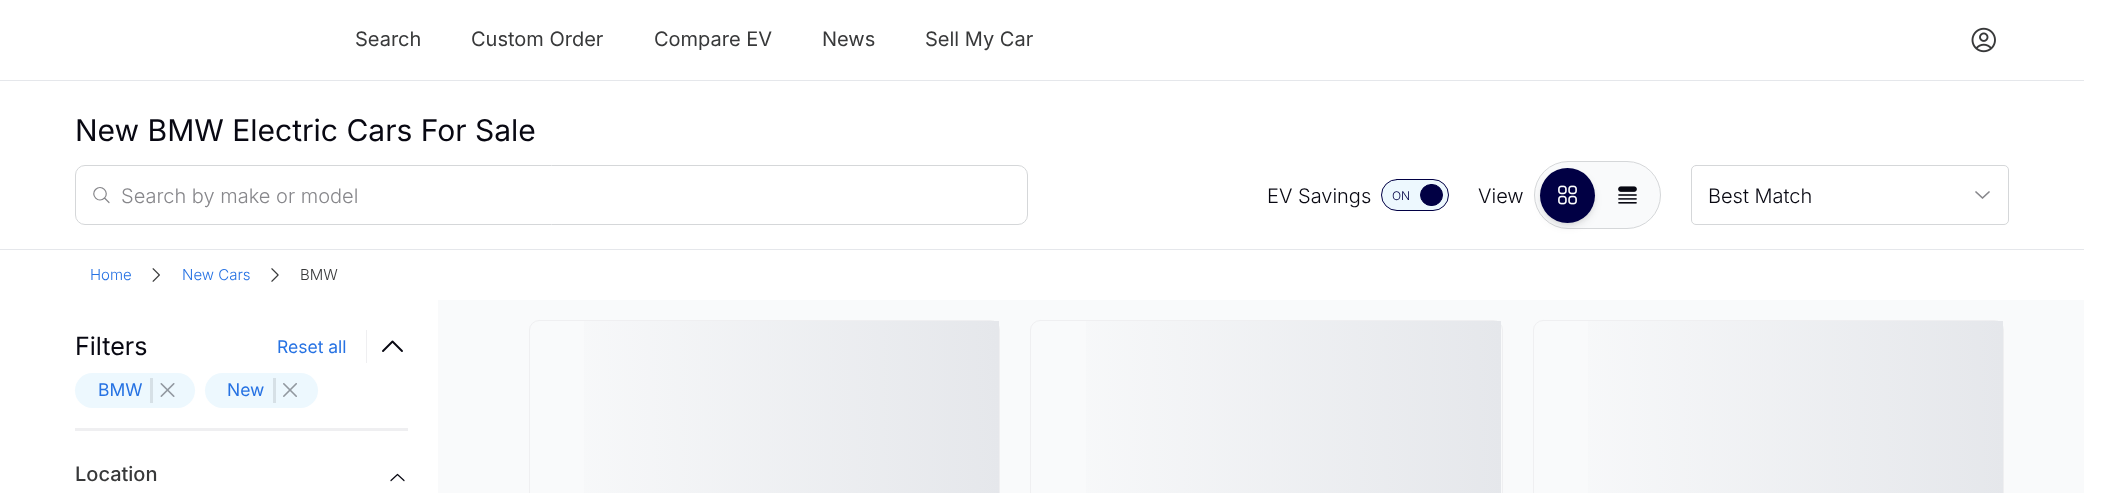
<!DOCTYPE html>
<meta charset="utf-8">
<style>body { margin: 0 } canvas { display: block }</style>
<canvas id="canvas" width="2102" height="493"></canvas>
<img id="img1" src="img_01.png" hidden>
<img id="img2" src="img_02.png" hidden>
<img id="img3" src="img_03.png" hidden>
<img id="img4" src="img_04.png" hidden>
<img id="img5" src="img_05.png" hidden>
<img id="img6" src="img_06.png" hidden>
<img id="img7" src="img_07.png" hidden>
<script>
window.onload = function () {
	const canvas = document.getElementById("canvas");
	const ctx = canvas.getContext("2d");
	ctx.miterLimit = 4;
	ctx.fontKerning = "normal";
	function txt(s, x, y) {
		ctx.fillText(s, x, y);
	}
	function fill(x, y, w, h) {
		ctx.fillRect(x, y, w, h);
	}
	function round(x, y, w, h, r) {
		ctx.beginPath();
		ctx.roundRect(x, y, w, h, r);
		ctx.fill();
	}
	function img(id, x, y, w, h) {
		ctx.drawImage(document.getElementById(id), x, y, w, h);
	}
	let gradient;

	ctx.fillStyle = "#FFFFFF";
	fill(0, 0, 2102, 493);
	ctx.fillStyle = "#E5E7EB";
	fill(0, 80, 2084, 1);
	img("img1", 1971, 27, 25, 26);
	fill(0, 249, 2084, 1);
	ctx.beginPath();
	ctx.roundRect(75.5, 165.5, 952, 59, 9.5);
	ctx.strokeStyle = "#D5D7D9";
	ctx.stroke();
	ctx.beginPath();
	ctx.moveTo(109, 202.5);
	ctx.lineTo(104.5, 198);
	ctx.moveTo(104.5, 198);
	ctx.bezierCurveTo(110, 192.5, 101.5, 183.5, 95.5, 189.5);
	ctx.bezierCurveTo(90, 195, 98.5, 204, 104.5, 198);
	ctx.closePath();
	ctx.strokeStyle = "#87878B";
	ctx.lineWidth = 1.2;
	ctx.lineCap = "round";
	ctx.lineJoin = "round";
	ctx.stroke();
	ctx.fillStyle = "#EDF8FE";
	ctx.beginPath();
	ctx.roundRect(1381.5, 179.5, 67, 31, 15.5);
	ctx.fill();
	ctx.strokeStyle = "#010044";
	ctx.lineWidth = 1;
	ctx.lineJoin = "miter";
	ctx.stroke();
	ctx.fillStyle = "#010044";
	ctx.beginPath();
	ctx.roundRect(1420.5, 184.5, 22, 21, 10.5);
	ctx.fill();
	ctx.stroke();
	ctx.fillStyle = "#F9FAFB";
	ctx.beginPath();
	ctx.roundRect(1534.5, 161.5, 126, 67, 33.5);
	ctx.fill();
	ctx.strokeStyle = "#D5D7D9";
	ctx.stroke();
	ctx.fillStyle = "rgba(0, 0, 0, 0.1)";
	ctx.filter = "blur(2.5px)";
	ctx.beginPath();
	ctx.roundRect(1543, 173, 50, 50, 25);
	ctx.fill();
	ctx.filter = "none";
	ctx.filter = "blur(4px)";
	ctx.beginPath();
	ctx.roundRect(1541, 174, 53, 52, 26);
	ctx.fill();
	ctx.filter = "none";
	ctx.fillStyle = "#010044";
	ctx.beginPath();
	ctx.arc(1567.5, 195.5, 27.5, 0, Math.PI * 2);
	ctx.fill();
	img("img2", 1558, 185, 19, 20);
	img("img3", 1618, 186, 19, 18);
	ctx.beginPath();
	ctx.roundRect(1691.5, 165.5, 317, 59, 4.5);
	ctx.stroke();
	ctx.beginPath();
	ctx.moveTo(1989, 192);
	ctx.lineTo(1982.5, 198);
	ctx.lineTo(1976, 192);
	ctx.strokeStyle = "#87878B";
	ctx.lineWidth = 1.7;
	ctx.lineJoin = "round";
	ctx.stroke();
	img("img4", 152, 268, 8, 14);
	img("img5", 271, 268, 8, 14);
	ctx.fillStyle = "#F9FAFB";
	fill(438, 300, 1646, 193);
	ctx.fillStyle = "#EFEFF1";
	fill(366, 330, 1, 33);
	ctx.beginPath();
	ctx.moveTo(383, 351);
	ctx.lineTo(392.5, 341.5);
	ctx.lineTo(402, 351);
	ctx.strokeStyle = "#080812";
	ctx.lineWidth = 1.9;
	ctx.stroke();
	ctx.fillStyle = "#EDF8FE";
	round(75, 373, 120, 35, 17.5);
	ctx.fillStyle = "#D6E0E6";
	fill(150, 378, 3, 25);
	img("img6", 160, 383, 15, 14);
	ctx.fillStyle = "#EDF8FE";
	round(205, 373, 113, 35, 17.5);
	ctx.fillStyle = "#D6E0E6";
	fill(273, 378, 3, 25);
	img("img7", 283, 383, 14, 14);
	ctx.fillStyle = "#EFEFF1";
	fill(75, 428, 333, 3);
	ctx.beginPath();
	ctx.moveTo(391, 480.5);
	ctx.lineTo(397.5, 474.5);
	ctx.lineTo(404, 480.5);
	ctx.lineWidth = 1.2;
	ctx.stroke();
	ctx.beginPath();
	ctx.roundRect(529.5, 320.5, 470, 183, 9.5);
	ctx.strokeStyle = "#EFEFF1";
	ctx.lineWidth = 1;
	ctx.lineJoin = "miter";
	ctx.stroke();
	gradient = ctx.createLinearGradient(1001, 464, 528, 472);
	gradient.addColorStop(0, "#E5E7EB");
	gradient.addColorStop(0.99, "rgba(229, 231, 235, 0)");
	ctx.fillStyle = gradient;
	fill(584, 321, 415, 172);
	ctx.beginPath();
	ctx.roundRect(1030.5, 320.5, 472, 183, 9.5);
	ctx.stroke();
	gradient = ctx.createLinearGradient(1504, 464, 1029, 472);
	gradient.addColorStop(0, "#E5E7EB");
	gradient.addColorStop(0.99, "rgba(229, 231, 235, 0)");
	ctx.fillStyle = gradient;
	fill(1086, 321, 415, 172);
	ctx.beginPath();
	ctx.roundRect(1533.5, 320.5, 470, 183, 9.5);
	ctx.stroke();
	gradient = ctx.createLinearGradient(2005, 464, 1531, 472);
	gradient.addColorStop(0, "#E5E7EB");
	gradient.addColorStop(0.99, "rgba(229, 231, 235, 0)");
	ctx.fillStyle = gradient;
	fill(1588, 321, 415, 172);
	ctx.font = "20px Inter";
	ctx.fillStyle = "#38393A";
	txt("Search", 355, 46);
	txt("Custom Order", 471, 46);
	txt("Compare EV", 654, 46);
	txt("News", 822, 46);
	txt("Sell My Car", 925, 46);
	ctx.font = "30px Inter";
	ctx.fillStyle = "#080812";
	txt("New BMW Electric Cars For Sale", 75, 141);
	ctx.font = "300 20px Inter";
	ctx.fillStyle = "#87878B";
	txt("Search by make or model", 121, 203);
	ctx.fillStyle = "#080812";
	txt("EV Savings", 1267, 203);
	ctx.font = "300 12px Inter";
	ctx.fillStyle = "#010044";
	txt("ON", 1392, 200);
	ctx.font = "300 20px Inter";
	ctx.fillStyle = "#080812";
	txt("View", 1478, 203);
	txt("Best Match", 1708, 203);
	ctx.font = "300 15px Inter";
	ctx.fillStyle = "#2672E3";
	txt("Home", 90, 280);
	txt("New Cars", 182, 280);
	ctx.fillStyle = "#38393A";
	txt("BMW", 300, 280);
	ctx.font = "25px Inter";
	ctx.fillStyle = "#080812";
	txt("Filters", 75, 355);
	ctx.font = "17.5px Inter";
	ctx.fillStyle = "#2672E3";
	txt("Reset all", 277, 353);
	txt("BMW", 98, 396);
	txt("New", 227, 396);
	ctx.font = "500 20px Inter";
	ctx.fillStyle = "#38393A";
	txt("Location", 75, 481);
};
</script>
